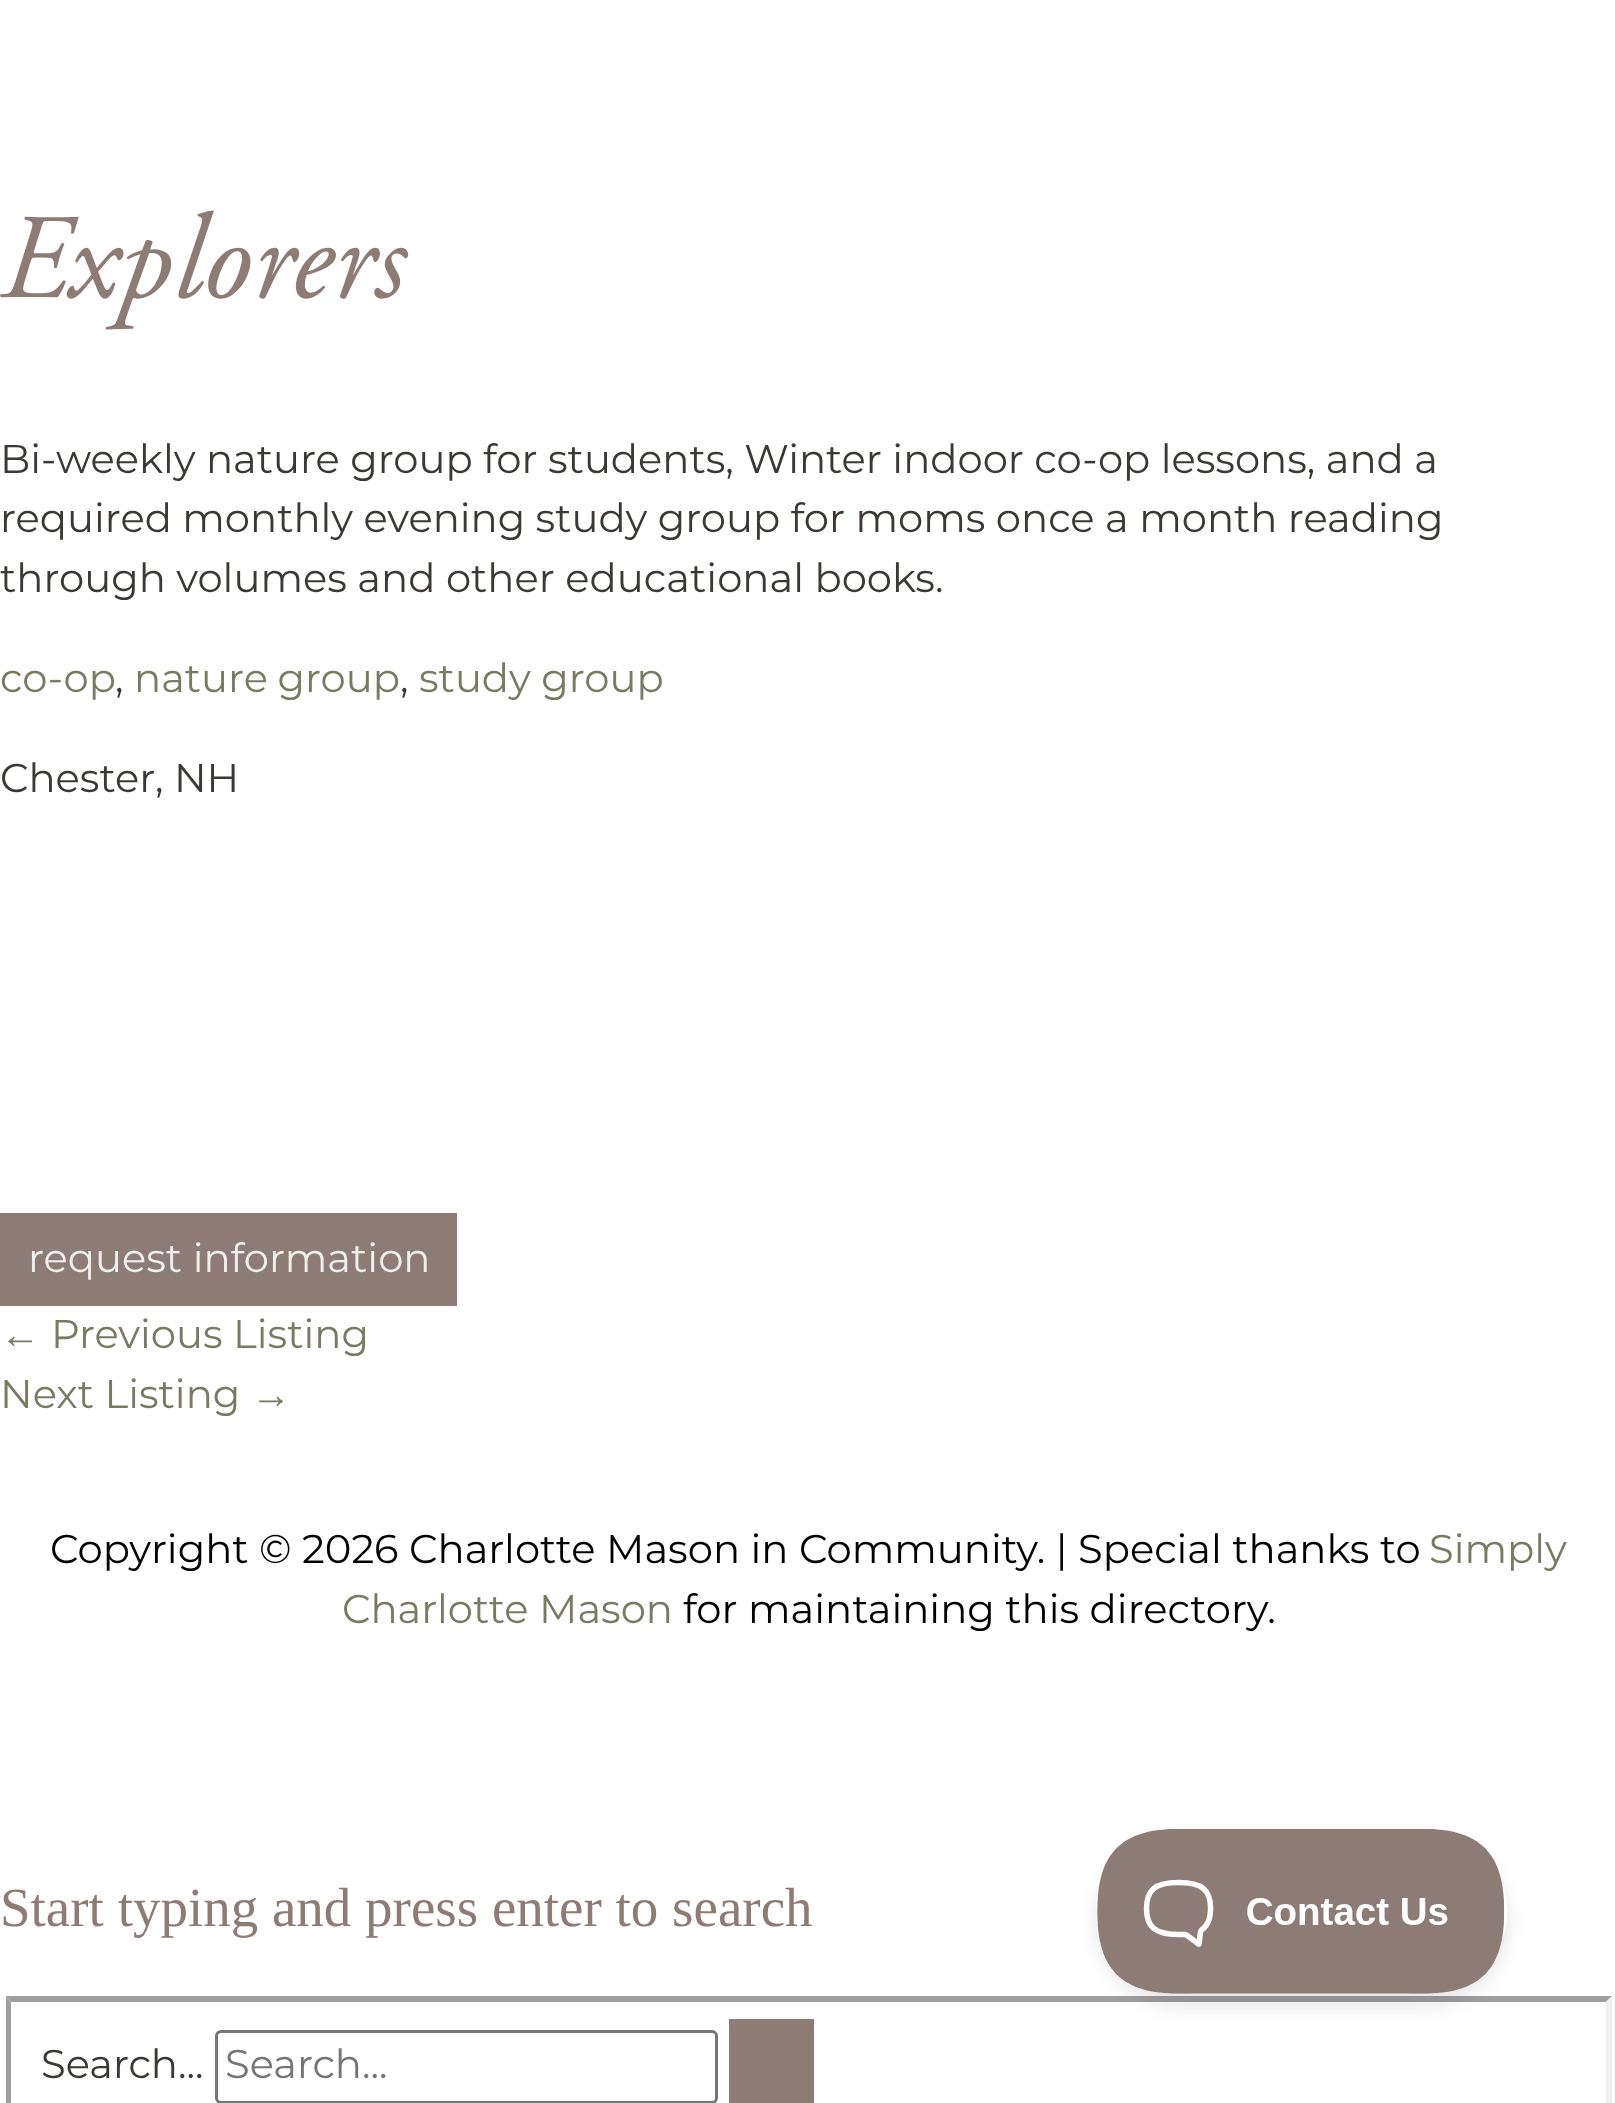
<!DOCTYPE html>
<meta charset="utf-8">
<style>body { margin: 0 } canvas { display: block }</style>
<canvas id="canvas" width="1615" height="2103"></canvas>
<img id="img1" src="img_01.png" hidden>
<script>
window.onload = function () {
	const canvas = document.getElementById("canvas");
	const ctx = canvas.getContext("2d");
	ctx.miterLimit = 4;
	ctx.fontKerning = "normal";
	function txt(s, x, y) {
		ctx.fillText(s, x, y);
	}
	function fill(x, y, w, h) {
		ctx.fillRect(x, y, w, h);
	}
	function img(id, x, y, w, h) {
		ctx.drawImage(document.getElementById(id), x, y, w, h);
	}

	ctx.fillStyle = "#FFFFFF";
	fill(0, 0, 1615, 2103);
	ctx.fillStyle = "#8D7C75";
	fill(0, 1213, 457, 93);
	ctx.fillStyle = "#9F9F9F";
	ctx.beginPath();
	ctx.moveTo(6, 1996);
	ctx.lineTo(1612, 1996);
	ctx.lineTo(1606, 2002);
	ctx.lineTo(11, 2002);
	ctx.closePath();
	ctx.fill();
	ctx.fillStyle = "#EFEFEF";
	ctx.beginPath();
	ctx.moveTo(1612, 1996);
	ctx.lineTo(1612, 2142);
	ctx.lineTo(1606, 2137);
	ctx.lineTo(1606, 2002);
	ctx.closePath();
	ctx.fill();
	ctx.fillStyle = "#9F9F9F";
	ctx.beginPath();
	ctx.moveTo(6, 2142);
	ctx.lineTo(6, 1996);
	ctx.lineTo(11, 2002);
	ctx.lineTo(11, 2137);
	ctx.closePath();
	ctx.fill();
	ctx.beginPath();
	ctx.roundRect(216.5, 2031.5, 500, 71, 4.5);
	ctx.strokeStyle = "#767676";
	ctx.lineWidth = 3;
	ctx.stroke();
	ctx.fillStyle = "#8D7C75";
	fill(729, 2019, 85, 84);
	ctx.save();
	ctx.beginPath();
	ctx.moveTo(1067, 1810);
	ctx.lineTo(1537, 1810);
	ctx.lineTo(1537, 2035);
	ctx.lineTo(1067, 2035);
	ctx.closePath();
	ctx.moveTo(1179.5, 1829);
	ctx.lineTo(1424.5, 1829);
	ctx.bezierCurveTo(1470, 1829, 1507, 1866, 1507, 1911.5);
	ctx.bezierCurveTo(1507, 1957, 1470, 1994, 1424.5, 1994);
	ctx.lineTo(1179.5, 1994);
	ctx.bezierCurveTo(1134, 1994, 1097, 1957, 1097, 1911.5);
	ctx.bezierCurveTo(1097, 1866, 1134, 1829, 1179.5, 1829);
	ctx.closePath();
	ctx.clip("evenodd");
	ctx.fillStyle = "rgba(0, 0, 0, 0.1)";
	ctx.filter = "blur(9.5px)";
	ctx.beginPath();
	ctx.roundRect(1097, 1840, 410, 165, 82.5);
	ctx.fill();
	ctx.filter = "none";
	ctx.restore();
	img("img1", 1097, 1828, 408, 166);
	ctx.font = "italic 121px Adobe Garamond";
	txt("Explorers", 0, 297);
	ctx.wordSpacing = "-0.1px";
	ctx.font = "100 40.15px Montserrat";
	ctx.fillStyle = "#3C3835";
	txt("Bi-weekly nature group for students, Winter indoor co-op lessons, and a", 0, 473);
	txt("required monthly evening study group for moms once a month reading", 0, 532);
	ctx.wordSpacing = "0px";
	txt("through volumes and other educational books.", 0, 592);
	ctx.fillStyle = "#7A7A64";
	txt("co-op", 0, 692);
	ctx.fillStyle = "#3C3835";
	txt(",", 115, 692);
	ctx.wordSpacing = "-1px";
	ctx.fillStyle = "#7A7A64";
	txt("nature group", 134, 692);
	ctx.wordSpacing = "0px";
	ctx.fillStyle = "#3C3835";
	txt(",", 400, 692);
	ctx.fillStyle = "#7A7A64";
	txt("study group", 419, 692);
	ctx.fillStyle = "#3C3835";
	txt("Chester, NH", 0, 792);
	ctx.fillStyle = "#EFF0EB";
	txt("request information", 28, 1272);
	ctx.font = "40.15px Liberation Sans";
	ctx.fillStyle = "#7A7A64";
	txt("←", 0, 1348);
	ctx.font = "100 40.15px Montserrat";
	txt("Previous Listing", 51, 1348);
	txt("Next Listing", 0, 1408);
	ctx.font = "40.15px Liberation Sans";
	txt("→", 251, 1408);
	ctx.font = "100 40.15px Montserrat";
	ctx.fillStyle = "#000000";
	txt("Copyright © 2026 Charlotte Mason in Community. | Special thanks to", 50, 1563);
	ctx.fillStyle = "#7A7A64";
	txt("Simply", 1429, 1563);
	txt("Charlotte Mason", 342, 1623);
	ctx.fillStyle = "#000000";
	txt("for maintaining this directory.", 683, 1623);
	ctx.font = "55px Liberation Serif";
	ctx.fillStyle = "#8D7C75";
	txt("Start typing and press enter to search", 0, 1926);
	ctx.font = "100 40.15px Montserrat";
	ctx.fillStyle = "#3C3835";
	txt("Search...", 41, 2078);
	ctx.fillStyle = "#757575";
	txt("Search...", 225, 2078);
};
</script>
